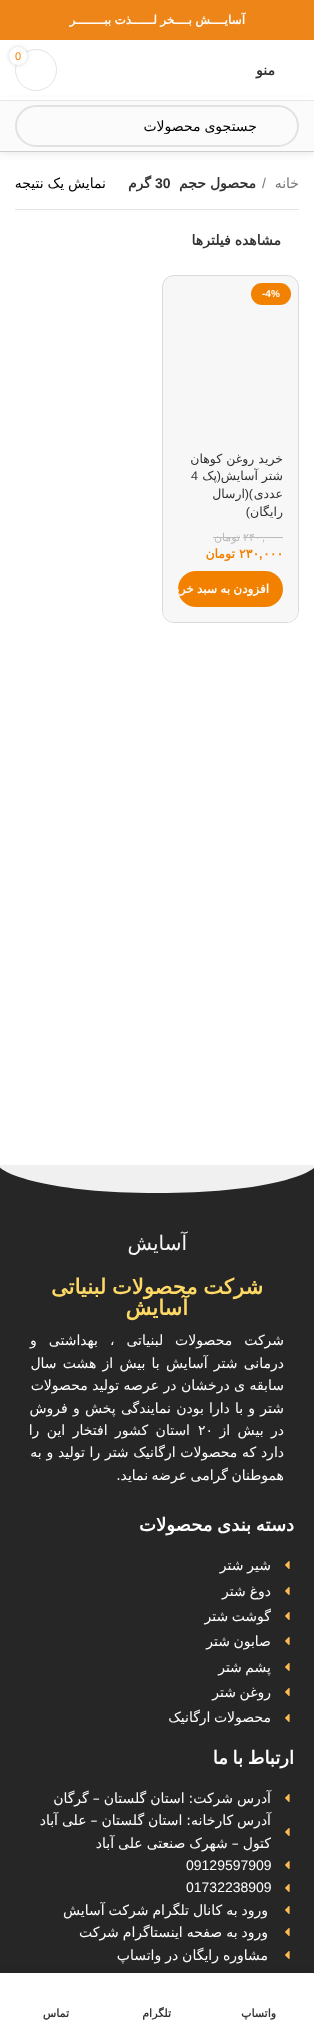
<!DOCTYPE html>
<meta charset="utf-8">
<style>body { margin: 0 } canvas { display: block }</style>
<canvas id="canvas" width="314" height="2028"></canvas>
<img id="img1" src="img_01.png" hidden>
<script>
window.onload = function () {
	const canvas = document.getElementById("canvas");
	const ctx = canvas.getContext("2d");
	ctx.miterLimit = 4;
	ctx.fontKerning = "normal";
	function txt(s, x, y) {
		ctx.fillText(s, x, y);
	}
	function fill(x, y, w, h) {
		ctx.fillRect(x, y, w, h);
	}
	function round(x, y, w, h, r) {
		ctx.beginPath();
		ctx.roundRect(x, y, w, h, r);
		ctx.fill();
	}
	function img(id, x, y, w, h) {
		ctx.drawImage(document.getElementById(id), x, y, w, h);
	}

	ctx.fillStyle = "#FFFFFF";
	fill(0, 0, 314, 2028);
	ctx.fillStyle = "#EE8518";
	fill(0, 0, 314, 40);
	ctx.fillStyle = "rgba(0, 0, 0, 0.1)";
	ctx.filter = "blur(4px)";
	ctx.beginPath();
	ctx.rect(0, 102, 314, 51);
	ctx.fill();
	ctx.filter = "none";
	ctx.fillStyle = "#FFFFFF";
	fill(0, 97, 314, 3);
	ctx.fillStyle = "#E6E6E6";
	fill(0, 100, 314, 1);
	ctx.beginPath();
	ctx.arc(36, 70, 20.5, 0, Math.PI * 2);
	ctx.strokeStyle = "#E4E4E4";
	ctx.stroke();
	ctx.fillStyle = "rgba(0, 0, 0, 0.17)";
	ctx.filter = "blur(2px)";
	ctx.beginPath();
	ctx.roundRect(9, 47, 18, 18, 9);
	ctx.fill();
	ctx.filter = "none";
	ctx.fillStyle = "#FFFFFF";
	ctx.beginPath();
	ctx.arc(18, 56, 9, 0, Math.PI * 2);
	ctx.fill();
	ctx.fillStyle = "#FBFBFB";
	fill(0, 101, 314, 50);
	ctx.fillStyle = "#CFCFCF";
	fill(0, 151, 314, 1);
	ctx.beginPath();
	ctx.roundRect(16, 106, 282, 40, 20);
	ctx.strokeStyle = "#E2E2E2";
	ctx.lineWidth = 2;
	ctx.stroke();
	ctx.fillStyle = "#E4E4E4";
	fill(15, 209, 284, 1);
	ctx.fillStyle = "#F7F7F7";
	round(162, 275, 137, 348, 12);
	ctx.beginPath();
	ctx.roundRect(162.5, 275.5, 136, 347, 11.5);
	ctx.strokeStyle = "rgba(0, 0, 0, 0.11)";
	ctx.lineWidth = 1;
	ctx.stroke();
	ctx.fillStyle = "#F28100";
	round(251, 283, 40, 22, 11);
	ctx.fillStyle = "#F7F7F7";
	ctx.beginPath();
	ctx.roundRect(163, 438, 135, 184, [0, 0, 11, 11]);
	ctx.fill();
	ctx.fillStyle = "#BBBBBB";
	fill(243, 537, 40, 1);
	fill(213, 537, 27, 1);
	ctx.fillStyle = "#F28100";
	round(178, 571, 105, 36, 18);
	ctx.fillStyle = "#262626";
	fill(0, 1167, 314, 806);
	ctx.fillStyle = "#F0F0F0";
	ctx.beginPath();
	ctx.moveTo(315, 1166);
	ctx.lineTo(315, 1165);
	ctx.lineTo(-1, 1165);
	ctx.lineTo(-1, 1166);
	ctx.bezierCurveTo(0, 1171, 39, 1193, 157, 1193);
	ctx.bezierCurveTo(275, 1193, 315, 1171, 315, 1166);
	ctx.closePath();
	ctx.fill();
	img("img1", 285, 1561, 5, 8);
	img("img1", 285, 1587, 5, 8);
	img("img1", 285, 1612, 5, 8);
	img("img1", 285, 1637, 5, 8);
	img("img1", 285, 1663, 5, 8);
	img("img1", 285, 1688, 5, 8);
	img("img1", 285, 1714, 5, 8);
	img("img1", 285, 1794, 5, 8);
	img("img1", 285, 1828, 5, 8);
	img("img1", 285, 1861, 5, 8);
	img("img1", 285, 1884, 5, 8);
	img("img1", 285, 1906, 5, 8);
	img("img1", 285, 1928, 5, 8);
	img("img1", 285, 1951, 5, 8);
	ctx.fillStyle = "rgba(0, 0, 0, 0.12)";
	ctx.filter = "blur(4.5px)";
	ctx.beginPath();
	ctx.rect(0, 1973, 314, 55);
	ctx.fill();
	ctx.filter = "none";
	ctx.fillStyle = "#FFFFFF";
	fill(0, 1973, 314, 55);
	ctx.wordSpacing = "-0.5px";
	ctx.direction = "rtl";
	ctx.font = "bold 12px DejaVu Sans";
	txt("آسایــــش بــــخر لــــــذت ببــــــــر", 245, 24);
	ctx.wordSpacing = "0px";
	ctx.direction = "ltr";
	ctx.font = "11px Liberation Sans";
	ctx.fillStyle = "#F28100";
	txt("0", 15, 60);
	ctx.direction = "rtl";
	ctx.font = "bold 14px DejaVu Sans";
	ctx.fillStyle = "#333333";
	txt("منو", 275, 75);
	ctx.save();
	ctx.beginPath();
	ctx.rect(32, 118, 225, 16);
	ctx.clip();
	ctx.wordSpacing = "-0.5px";
	ctx.font = "14px DejaVu Sans";
	ctx.fillStyle = "#000000";
	txt("جستجوی محصولات", 257, 131);
	ctx.restore();
	ctx.font = "14px DejaVu Sans";
	ctx.fillStyle = "#777777";
	txt("خانه", 299, 188);
	ctx.direction = "ltr";
	ctx.font = "14px Liberation Sans";
	txt("/", 262, 188);
	ctx.wordSpacing = "-0.5px";
	ctx.direction = "rtl";
	ctx.font = "bold 14px DejaVu Sans";
	ctx.fillStyle = "#333333";
	txt("محصول حجم", 256, 188);
	ctx.wordSpacing = "0px";
	ctx.direction = "ltr";
	ctx.font = "bold 14px Liberation Sans";
	txt("30", 155, 188);
	ctx.direction = "rtl";
	ctx.font = "bold 14px DejaVu Sans";
	txt("گرم", 151, 188);
	ctx.wordSpacing = "-0.5px";
	ctx.font = "14px DejaVu Sans";
	ctx.fillStyle = "#000000";
	txt("نمایش یک نتیجه", 106, 188);
	ctx.font = "bold 14px DejaVu Sans";
	ctx.fillStyle = "#333333";
	txt("مشاهده فیلترها", 281, 245);
	ctx.wordSpacing = "0px";
	ctx.direction = "ltr";
	ctx.font = "bold 10px Liberation Sans";
	ctx.fillStyle = "#FFFFFF";
	txt("-4%", 262, 297);
	ctx.direction = "rtl";
	ctx.font = "12.5px DejaVu Sans";
	ctx.fillStyle = "#333333";
	txt("خرید روغن کوهان", 283, 463);
	txt("شتر آسایش", 283, 480);
	ctx.font = "12.5px Liberation Sans";
	txt("(", 221, 480);
	ctx.font = "12.5px DejaVu Sans";
	txt("پک", 217, 480);
	ctx.direction = "ltr";
	ctx.font = "12.5px Liberation Sans";
	txt("4", 191, 480);
	ctx.direction = "rtl";
	ctx.font = "12.5px DejaVu Sans";
	txt("عددی", 283, 498);
	ctx.font = "12.5px Liberation Sans";
	txt(")(", 253, 498);
	ctx.font = "12.5px DejaVu Sans";
	txt("ارسال", 245, 498);
	txt("رایگان", 283, 516);
	ctx.font = "12.5px Liberation Sans";
	txt(")", 250, 516);
	ctx.direction = "ltr";
	ctx.font = "11px Liberation Sans";
	ctx.fillStyle = "#BBBBBB";
	txt(",", 262, 541);
	ctx.font = "11px DejaVu Sans";
	txt("۲۴۰", 243, 541);
	ctx.direction = "rtl";
	txt("تومان", 240, 541);
	ctx.direction = "ltr";
	ctx.font = "bold 12.5px DejaVu Sans";
	ctx.fillStyle = "#F28100";
	txt("۰۰۰", 263, 558);
	txt("۲۳۰", 239, 558);
	ctx.direction = "rtl";
	txt("تومان", 235, 558);
	ctx.direction = "ltr";
	ctx.font = "bold 12.5px Liberation Sans";
	txt(",", 259, 558);
	ctx.save();
	ctx.beginPath();
	ctx.roundRect(178, 571, 105, 36, 18);
	ctx.clip();
	ctx.wordSpacing = "-0.5px";
	ctx.direction = "rtl";
	ctx.font = "bold 12px DejaVu Sans";
	ctx.fillStyle = "#FFFFFF";
	txt("افزودن به سبد خرید", 269, 593);
	ctx.restore();
	ctx.direction = "rtl";
	ctx.font = "20px DejaVu Sans";
	ctx.fillStyle = "#F7F7F7";
	txt("آسایش", 187, 1250);
	ctx.wordSpacing = "-1px";
	ctx.font = "bold 21px DejaVu Sans";
	ctx.fillStyle = "#FFD966";
	txt("شرکت محصولات لبنیاتی", 263, 1294);
	ctx.wordSpacing = "0px";
	txt("آسایش", 188, 1315);
	ctx.wordSpacing = "7.5px";
	ctx.font = "14px DejaVu Sans";
	ctx.fillStyle = "#FFFFFF";
	txt("شرکت محصولات لبنیاتی ، بهداشتی و", 284, 1345);
	ctx.wordSpacing = "1.75px";
	txt("درمانی شتر آسایش با بیش از هشت سال", 284, 1368);
	ctx.wordSpacing = "0px";
	txt("سابقه ی درخشان در عرصه تولید محصولات", 284, 1390);
	ctx.wordSpacing = "0.75px";
	txt("شتر و با دارا بودن نمایندگی پخش و فروش", 284, 1413);
	ctx.wordSpacing = "3px";
	txt("در بیش از", 284, 1435);
	ctx.wordSpacing = "0px";
	ctx.direction = "ltr";
	txt("۲۰", 198, 1435);
	ctx.wordSpacing = "3px";
	ctx.direction = "rtl";
	txt("استان کشور افتخار این را", 190, 1435);
	ctx.wordSpacing = "0.25px";
	txt("دارد که محصولات ارگانیک شتر را تولید و به", 284, 1457);
	ctx.wordSpacing = "-1px";
	txt("هموطنان گرامی عرضه نماید.", 284, 1480);
	ctx.font = "bold 18px DejaVu Sans";
	txt("دسته بندی محصولات", 294, 1531);
	ctx.wordSpacing = "-0.5px";
	ctx.font = "14px DejaVu Sans";
	txt("شیر شتر", 271, 1570);
	txt("دوغ شتر", 271, 1596);
	ctx.wordSpacing = "-1px";
	txt("گوشت شتر", 271, 1621);
	txt("صابون شتر", 271, 1646);
	txt("پشم شتر", 271, 1672);
	txt("روغن شتر", 271, 1697);
	txt("محصولات ارگانیک", 271, 1722);
	ctx.font = "bold 18px DejaVu Sans";
	txt("ارتباط با ما", 294, 1764);
	ctx.wordSpacing = "-0.5px";
	ctx.font = "14px DejaVu Sans";
	txt("آدرس شرکت: استان گلستان – گرگان", 271, 1803);
	txt("آدرس کارخانه: استان گلستان – علی آباد", 271, 1825);
	txt("کتول – شهرک صنعتی علی آباد", 271, 1848);
	ctx.wordSpacing = "0px";
	ctx.direction = "ltr";
	ctx.font = "14px Liberation Sans";
	txt("09129597909", 186, 1870);
	txt("01732238909", 186, 1892);
	ctx.wordSpacing = "-0.5px";
	ctx.direction = "rtl";
	ctx.font = "14px DejaVu Sans";
	txt("ورود به کانال تلگرام شرکت آسایش", 268, 1915);
	txt("ورود به صفحه اینستاگرام شرکت", 268, 1937);
	txt("مشاوره رایگان در واتساپ", 268, 1960);
	ctx.wordSpacing = "0px";
	ctx.font = "bold 11px DejaVu Sans";
	ctx.fillStyle = "#333333";
	txt("واتساپ", 276, 2017);
	txt("تلگرام", 171, 2017);
	txt("تماس", 69, 2017);
};
</script>
